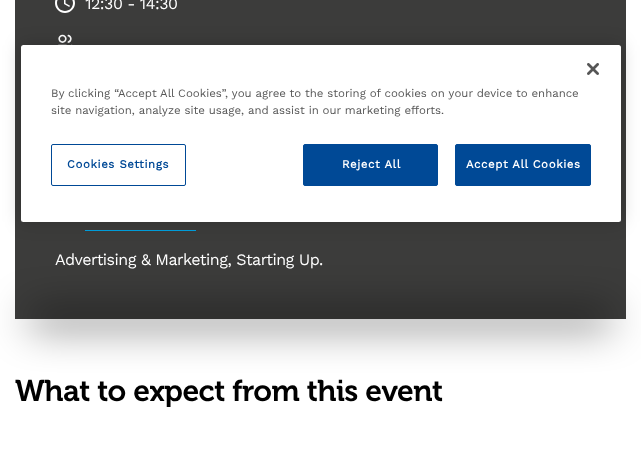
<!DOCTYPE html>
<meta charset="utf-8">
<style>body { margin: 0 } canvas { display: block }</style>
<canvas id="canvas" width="641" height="454"></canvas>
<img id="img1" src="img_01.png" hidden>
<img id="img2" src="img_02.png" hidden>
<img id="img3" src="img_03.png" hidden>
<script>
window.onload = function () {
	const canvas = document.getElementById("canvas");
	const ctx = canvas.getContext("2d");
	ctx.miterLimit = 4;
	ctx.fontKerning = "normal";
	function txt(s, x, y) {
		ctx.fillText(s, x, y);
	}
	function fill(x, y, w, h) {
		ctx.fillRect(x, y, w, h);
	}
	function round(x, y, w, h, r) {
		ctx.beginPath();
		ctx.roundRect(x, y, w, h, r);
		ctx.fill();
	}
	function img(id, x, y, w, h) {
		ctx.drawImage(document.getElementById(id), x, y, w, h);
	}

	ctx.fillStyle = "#FFFFFF";
	fill(0, 0, 641, 454);
	ctx.fillStyle = "#3C3C3B";
	fill(15, 0, 611, 319);
	img("img1", 55, 0, 20, 13);
	img("img2", 58, 34, 15, 11);
	ctx.fillStyle = "#00A0DF";
	fill(85, 230, 111, 1);
	ctx.fillStyle = "#000000";
	ctx.filter = "blur(20px)";
	ctx.beginPath();
	ctx.rect(30, 314, 581, 10);
	ctx.fill();
	ctx.filter = "none";
	ctx.fillStyle = "rgba(0, 0, 0, 0.2)";
	ctx.filter = "blur(9px)";
	ctx.beginPath();
	ctx.roundRect(21, 45, 600, 177, 2.5);
	ctx.fill();
	ctx.filter = "none";
	ctx.fillStyle = "#FFFFFF";
	round(21, 45, 600, 177, 2.5);
	img("img3", 587, 63, 12, 12);
	ctx.beginPath();
	ctx.roundRect(51.5, 144.5, 134, 41, 1.5);
	ctx.strokeStyle = "#004996";
	ctx.stroke();
	ctx.fillStyle = "#004996";
	ctx.beginPath();
	ctx.roundRect(303.5, 144.5, 134, 41, 1.5);
	ctx.fill();
	ctx.stroke();
	ctx.beginPath();
	ctx.roundRect(455.5, 144.5, 135, 41, 1.5);
	ctx.fill();
	ctx.stroke();
	ctx.letterSpacing = "-0.5px";
	ctx.font = "16px Work Sans";
	ctx.fillStyle = "#FFFFFF";
	txt("12:30 - 14:30", 85, 9);
	txt("Advertising & Marketing, Starting Up.", 55, 265);
	ctx.font = "600 30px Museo";
	ctx.fillStyle = "#000000";
	txt("What to expect from this event", 15, 401);
	ctx.letterSpacing = "0px";
	ctx.font = "11.4px Work Sans";
	ctx.fillStyle = "#565656";
	txt("By clicking “Accept All Cookies”, you agree to the storing of cookies on your device to enhance", 51, 97);
	txt("site navigation, analyze site usage, and assist in our marketing efforts.", 51, 114);
	ctx.letterSpacing = "0.6px";
	ctx.font = "bold 11.4px Work Sans";
	ctx.fillStyle = "#004996";
	txt("Cookies Settings", 67, 168);
	ctx.fillStyle = "#FFFFFF";
	txt("Reject All", 342, 168);
	txt("Accept All Cookies", 466, 168);
};
</script>
